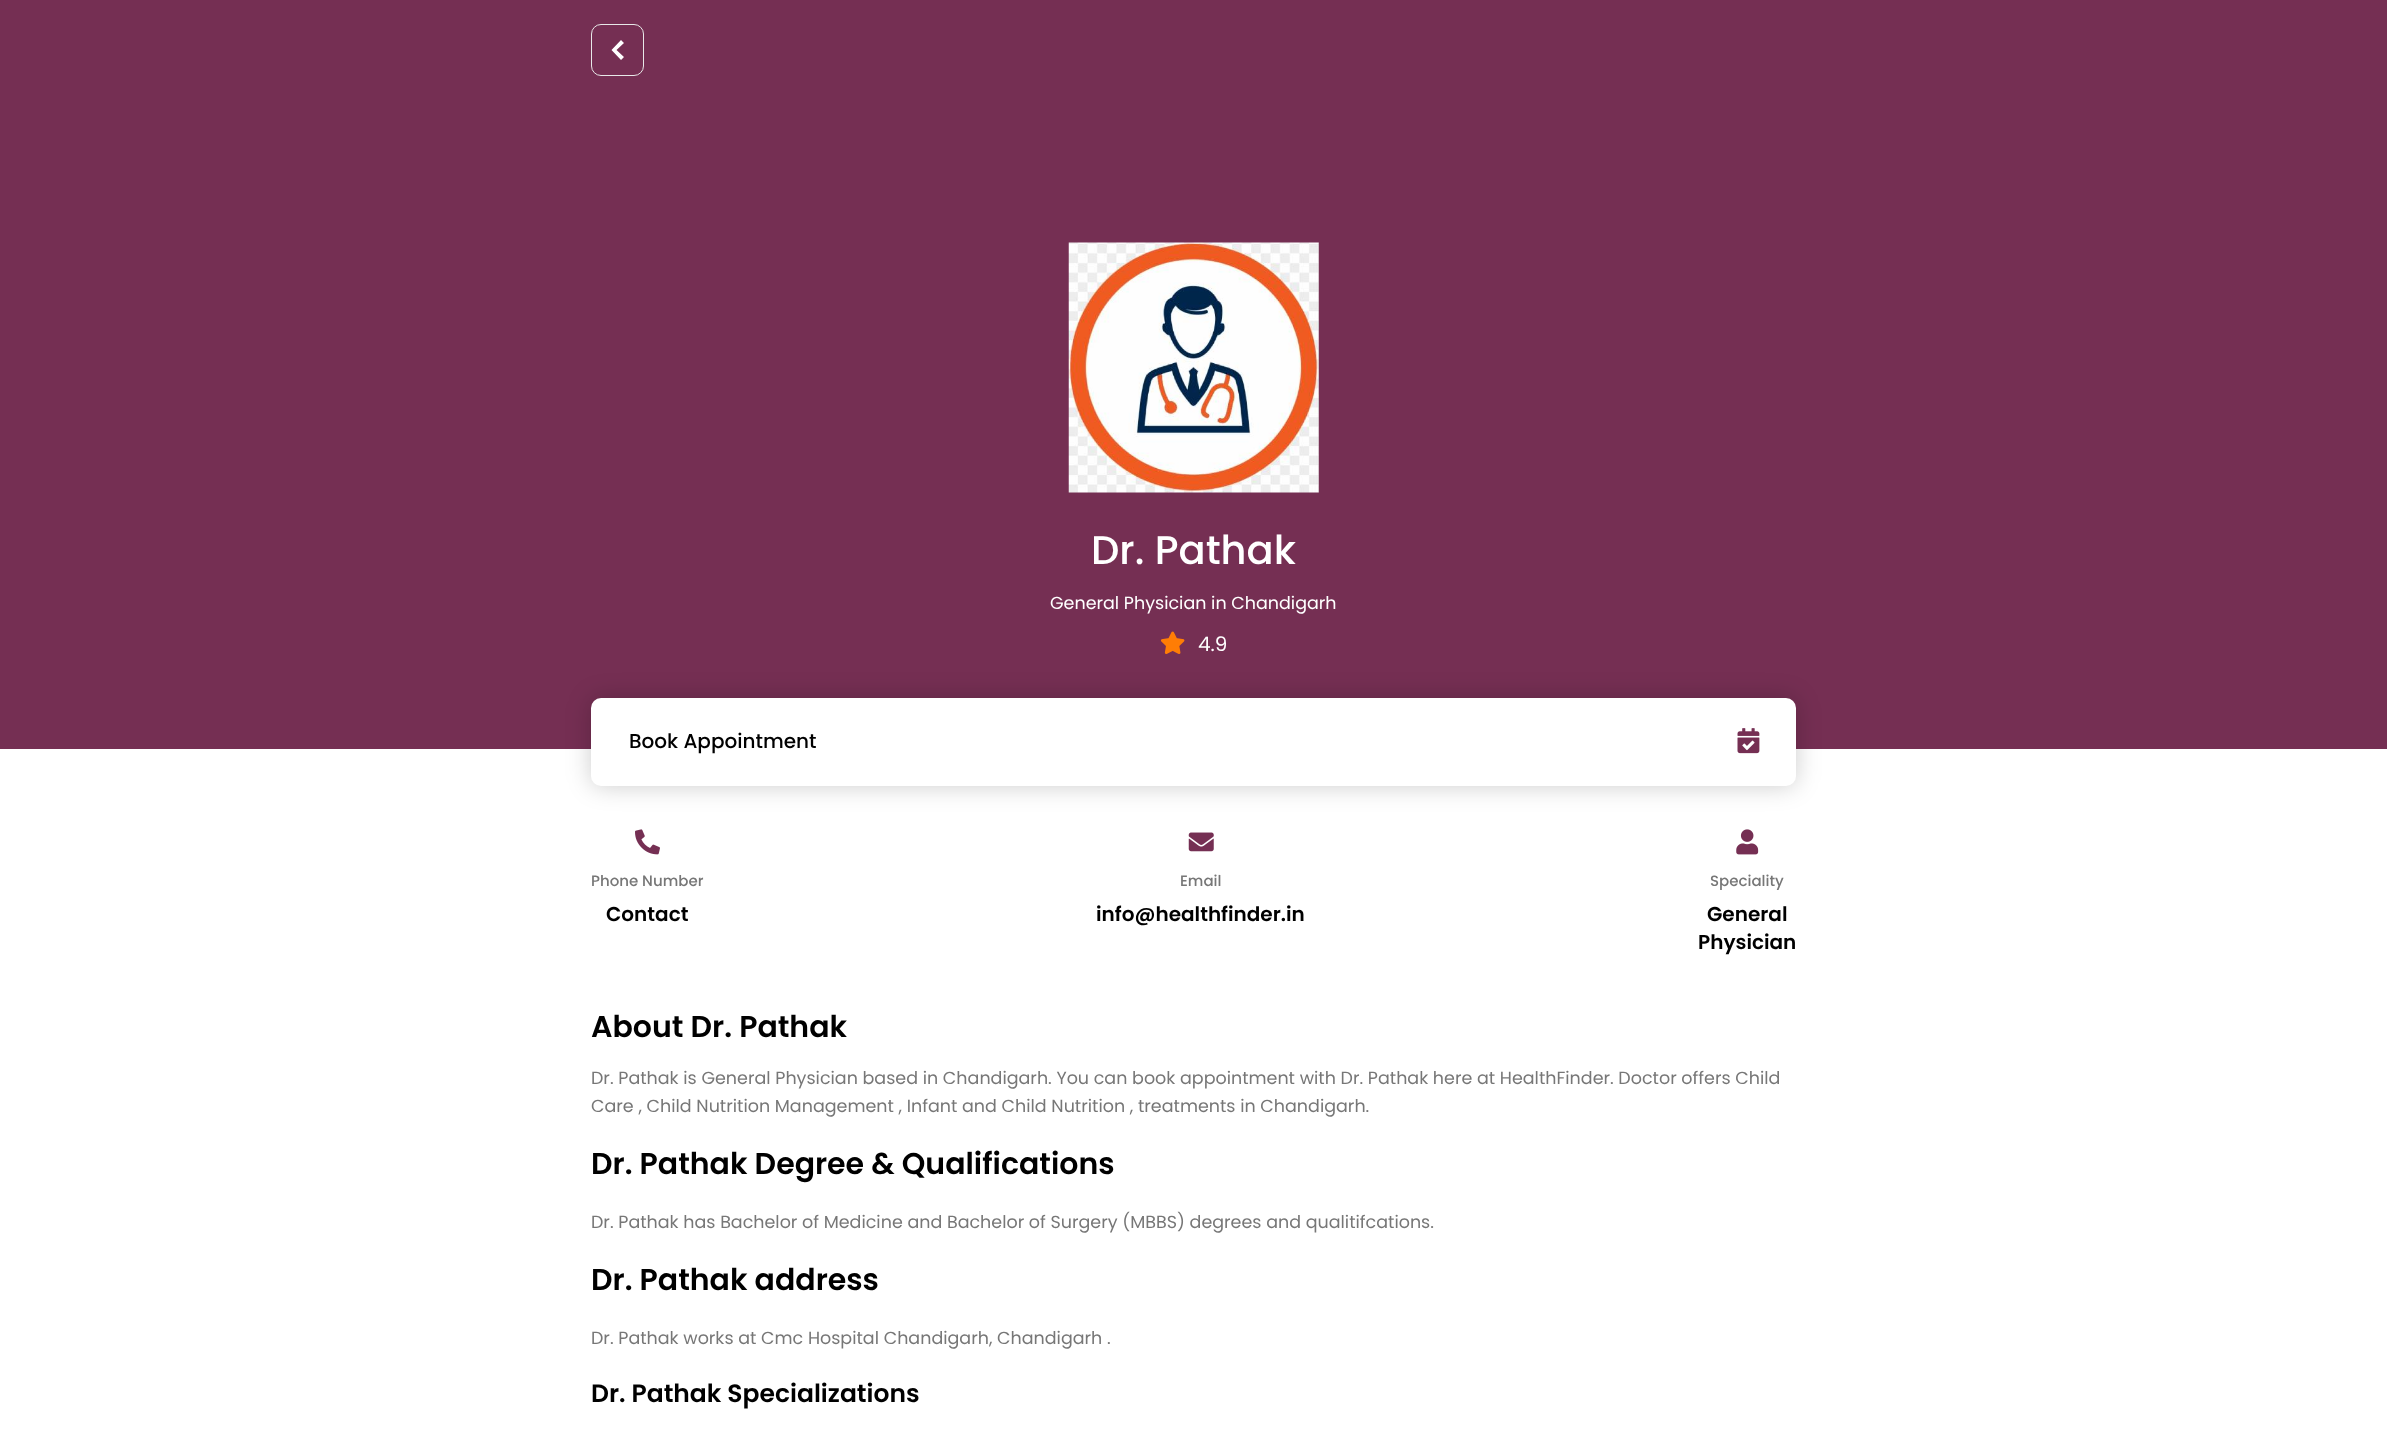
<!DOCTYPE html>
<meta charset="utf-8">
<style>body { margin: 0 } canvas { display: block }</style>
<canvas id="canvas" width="2387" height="1434"></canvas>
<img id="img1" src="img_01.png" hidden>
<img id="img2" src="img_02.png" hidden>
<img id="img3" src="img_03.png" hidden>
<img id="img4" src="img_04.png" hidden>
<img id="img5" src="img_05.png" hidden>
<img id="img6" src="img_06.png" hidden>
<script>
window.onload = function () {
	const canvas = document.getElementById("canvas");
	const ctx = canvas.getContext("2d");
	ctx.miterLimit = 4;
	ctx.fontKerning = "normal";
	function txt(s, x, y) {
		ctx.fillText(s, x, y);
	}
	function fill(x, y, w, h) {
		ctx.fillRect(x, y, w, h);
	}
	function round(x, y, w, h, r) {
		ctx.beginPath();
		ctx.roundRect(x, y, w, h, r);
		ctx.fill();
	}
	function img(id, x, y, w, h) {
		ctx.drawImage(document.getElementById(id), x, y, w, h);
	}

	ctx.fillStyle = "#FFFFFF";
	fill(0, 0, 2387, 1434);
	ctx.fillStyle = "#752F53";
	fill(0, 0, 2387, 749);
	ctx.beginPath();
	ctx.roundRect(591.5, 24.5, 52, 51, 9.5);
	ctx.strokeStyle = "#E8E8E8";
	ctx.stroke();
	ctx.fillStyle = "#FFFFFF";
	ctx.beginPath();
	ctx.moveTo(616.5, 50);
	ctx.lineTo(624, 43);
	ctx.lineTo(621, 40);
	ctx.lineTo(611.5, 50);
	ctx.lineTo(621, 60);
	ctx.lineTo(624, 57);
	ctx.closePath();
	ctx.fill("evenodd");
	img("img1", 1068, 242, 251, 251);
	img("img2", 1160, 631, 25, 23);
	ctx.fillStyle = "rgba(0, 0, 0, 0.2)";
	ctx.filter = "blur(12.5px)";
	ctx.beginPath();
	ctx.roundRect(591, 698, 1205, 88, 10);
	ctx.fill();
	ctx.filter = "none";
	ctx.fillStyle = "#FFFFFF";
	round(591, 698, 1205, 88, 10);
	img("img3", 1737, 728, 23, 26);
	img("img4", 635, 829, 25, 26);
	img("img5", 1188, 832, 26, 20);
	img("img6", 1736, 829, 23, 26);
	ctx.font = "500 40px Poppins";
	txt("Dr. Pathak", 1091, 564);
	ctx.font = "17.5px Poppins";
	txt("General Physician in Chandigarh", 1050, 609);
	ctx.font = "20px Poppins";
	txt("4.9", 1198, 651);
	ctx.font = "500 20px Poppins";
	ctx.fillStyle = "#000000";
	txt("Book Appointment", 629, 748);
	ctx.font = "500 15px Poppins";
	ctx.fillStyle = "#777777";
	txt("Phone Number", 591, 886);
	ctx.font = "600 20px Poppins";
	ctx.fillStyle = "#000000";
	txt("Contact", 606, 921);
	ctx.font = "500 15px Poppins";
	ctx.fillStyle = "#777777";
	txt("Email", 1180, 886);
	ctx.font = "600 20px Poppins";
	ctx.fillStyle = "#000000";
	txt("info@healthfinder.in", 1096, 921);
	ctx.font = "500 15px Poppins";
	ctx.fillStyle = "#777777";
	txt("Speciality", 1710, 886);
	ctx.font = "600 20px Poppins";
	ctx.fillStyle = "#000000";
	txt("General", 1707, 921);
	txt("Physician", 1698, 949);
	ctx.font = "600 30px Poppins";
	txt("About Dr. Pathak", 591, 1037);
	ctx.font = "17.5px Poppins";
	ctx.fillStyle = "#777777";
	txt("Dr. Pathak is General Physician based in Chandigarh. You can book appointment with Dr. Pathak here at HealthFinder. Doctor offers Child", 591, 1084);
	txt("Care , Child Nutrition Management , Infant and Child Nutrition , treatments in Chandigarh.", 591, 1112);
	ctx.font = "600 30px Poppins";
	ctx.fillStyle = "#000000";
	txt("Dr. Pathak Degree & Qualifications", 591, 1174);
	ctx.font = "17.5px Poppins";
	ctx.fillStyle = "#777777";
	txt("Dr. Pathak has Bachelor of Medicine and Bachelor of Surgery (MBBS) degrees and qualitifcations.", 591, 1228);
	ctx.font = "600 30px Poppins";
	ctx.fillStyle = "#000000";
	txt("Dr. Pathak address", 591, 1290);
	ctx.font = "17.5px Poppins";
	ctx.fillStyle = "#777777";
	txt("Dr. Pathak works at Cmc Hospital Chandigarh, Chandigarh .", 591, 1344);
	ctx.font = "600 25px Poppins";
	ctx.fillStyle = "#000000";
	txt("Dr. Pathak Specializations", 591, 1402);
};
</script>
